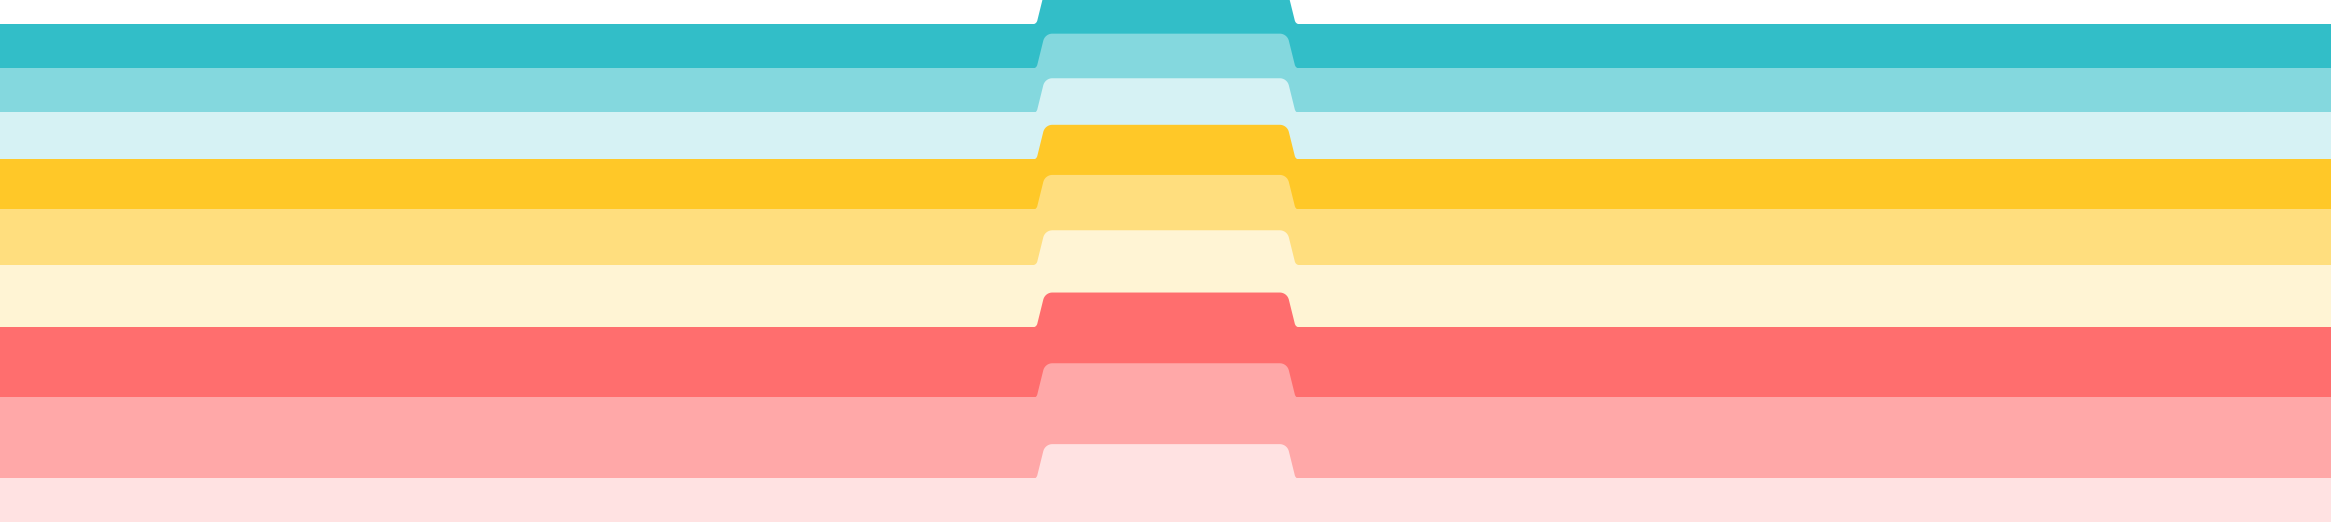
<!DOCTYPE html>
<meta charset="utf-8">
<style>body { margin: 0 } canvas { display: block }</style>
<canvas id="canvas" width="2331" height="522"></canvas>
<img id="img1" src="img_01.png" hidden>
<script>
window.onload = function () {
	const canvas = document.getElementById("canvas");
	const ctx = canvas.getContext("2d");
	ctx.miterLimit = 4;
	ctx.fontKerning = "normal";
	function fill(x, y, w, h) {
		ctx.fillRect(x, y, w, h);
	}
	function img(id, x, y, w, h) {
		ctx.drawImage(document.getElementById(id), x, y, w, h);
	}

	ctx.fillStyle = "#FFFFFF";
	fill(0, 0, 2331, 522);
	img("img1", 0, 0, 2331, 522);
};
</script>
